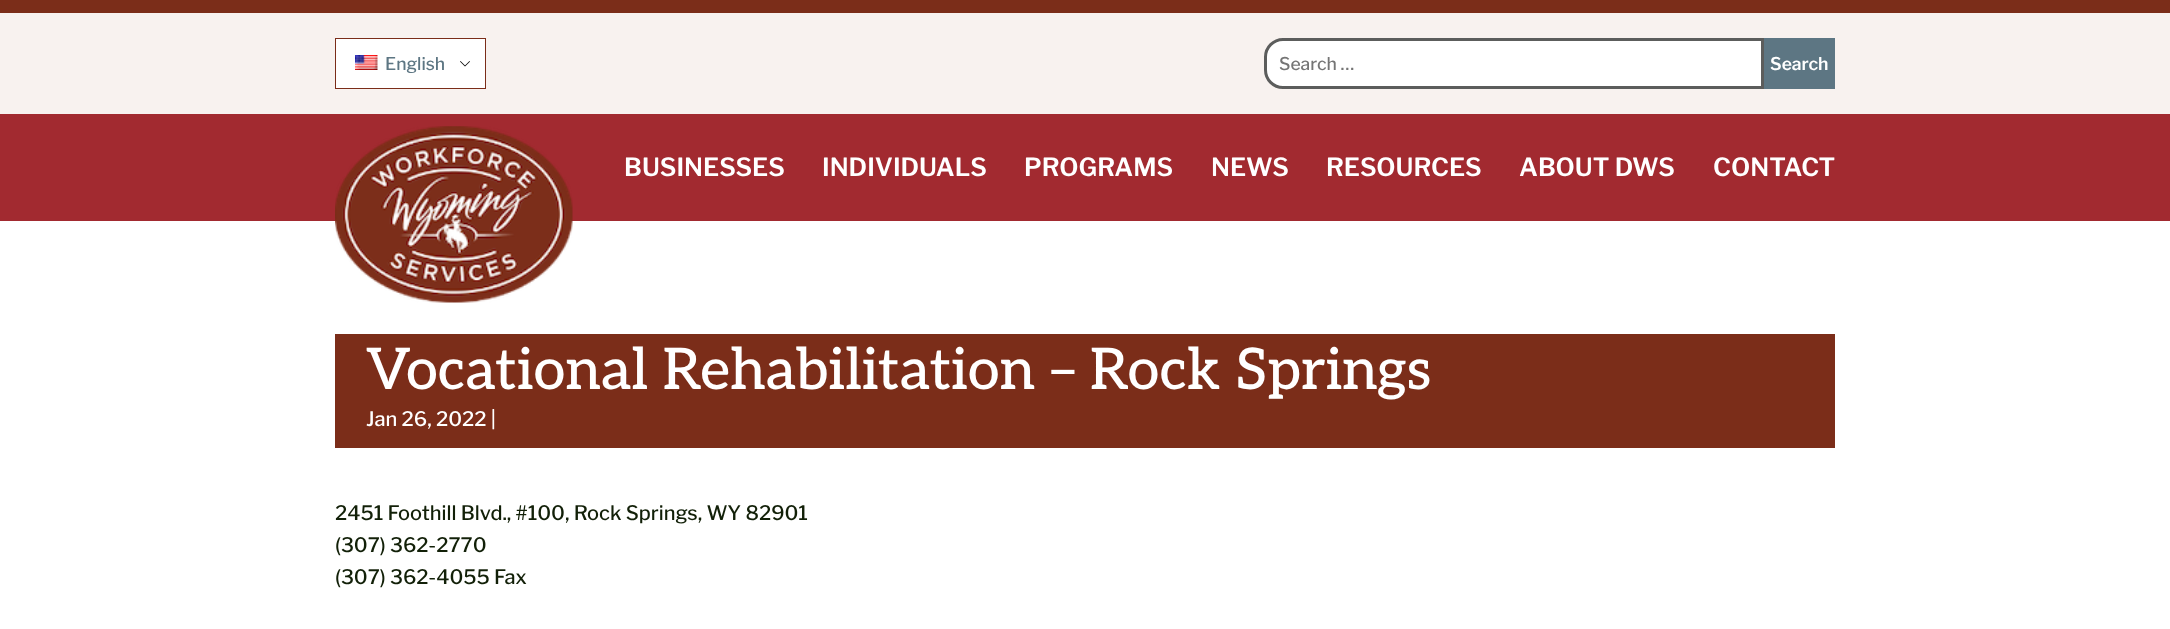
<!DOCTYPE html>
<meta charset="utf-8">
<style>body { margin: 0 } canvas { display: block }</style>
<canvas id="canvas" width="2170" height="629"></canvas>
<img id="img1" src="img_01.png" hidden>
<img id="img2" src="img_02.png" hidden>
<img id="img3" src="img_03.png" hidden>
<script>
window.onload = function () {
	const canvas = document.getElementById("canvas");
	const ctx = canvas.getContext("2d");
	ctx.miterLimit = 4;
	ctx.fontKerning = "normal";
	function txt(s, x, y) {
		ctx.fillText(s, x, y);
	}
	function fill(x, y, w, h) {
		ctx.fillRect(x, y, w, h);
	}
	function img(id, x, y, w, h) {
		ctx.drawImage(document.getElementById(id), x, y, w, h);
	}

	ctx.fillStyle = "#FFFFFF";
	fill(0, 0, 2170, 629);
	ctx.fillStyle = "#7B2D19";
	fill(0, 0, 2170, 13);
	ctx.fillStyle = "#F8F2EF";
	fill(0, 13, 2170, 101);
	ctx.fillStyle = "#FFFFFF";
	fill(336, 39, 149, 49);
	img("img1", 460, 61, 10, 6);
	ctx.strokeStyle = "#7B2D19";
	ctx.strokeRect(335.5, 38.5, 150, 50);
	img("img2", 355, 55, 23, 15);
	ctx.beginPath();
	ctx.roundRect(1265.5, 39.5, 497, 48, [17.5, 0, 0, 17.5]);
	ctx.fill();
	ctx.strokeStyle = "#5C5D5C";
	ctx.lineWidth = 3;
	ctx.stroke();
	ctx.fillStyle = "#5D7683";
	fill(1764, 38, 71, 51);
	ctx.fillStyle = "#A22A30";
	fill(0, 114, 2170, 107);
	img("img3", 335, 126, 238, 177);
	ctx.fillStyle = "#7B2D19";
	fill(335, 334, 1500, 114);
	ctx.font = "500 17.5px Libre Franklin";
	ctx.fillStyle = "#5D7683";
	txt("English", 385, 70);
	ctx.fillStyle = "#757575";
	txt("Search …", 1279, 70);
	ctx.font = "600 17.5px Libre Franklin";
	ctx.fillStyle = "#FFFFFF";
	txt("Search", 1770, 70);
	ctx.font = "600 25px Libre Franklin";
	txt("BUSINESSES", 624, 176);
	txt("INDIVIDUALS", 822, 176);
	txt("PROGRAMS", 1024, 176);
	txt("NEWS", 1211, 176);
	txt("RESOURCES", 1326, 176);
	txt("ABOUT DWS", 1519, 176);
	txt("CONTACT", 1713, 176);
	ctx.font = "500 57.5px Aleo";
	txt("Vocational Rehabilitation – Rock Springs", 366, 389);
	ctx.font = "500 20px Libre Franklin";
	txt("Jan 26, 2022 |", 366, 426);
	ctx.fillStyle = "#122008";
	txt("2451 Foothill Blvd., #100, Rock Springs, WY 82901", 335, 520);
	txt("(307) 362-2770", 335, 552);
	txt("(307) 362-4055 Fax", 335, 584);
};
</script>
